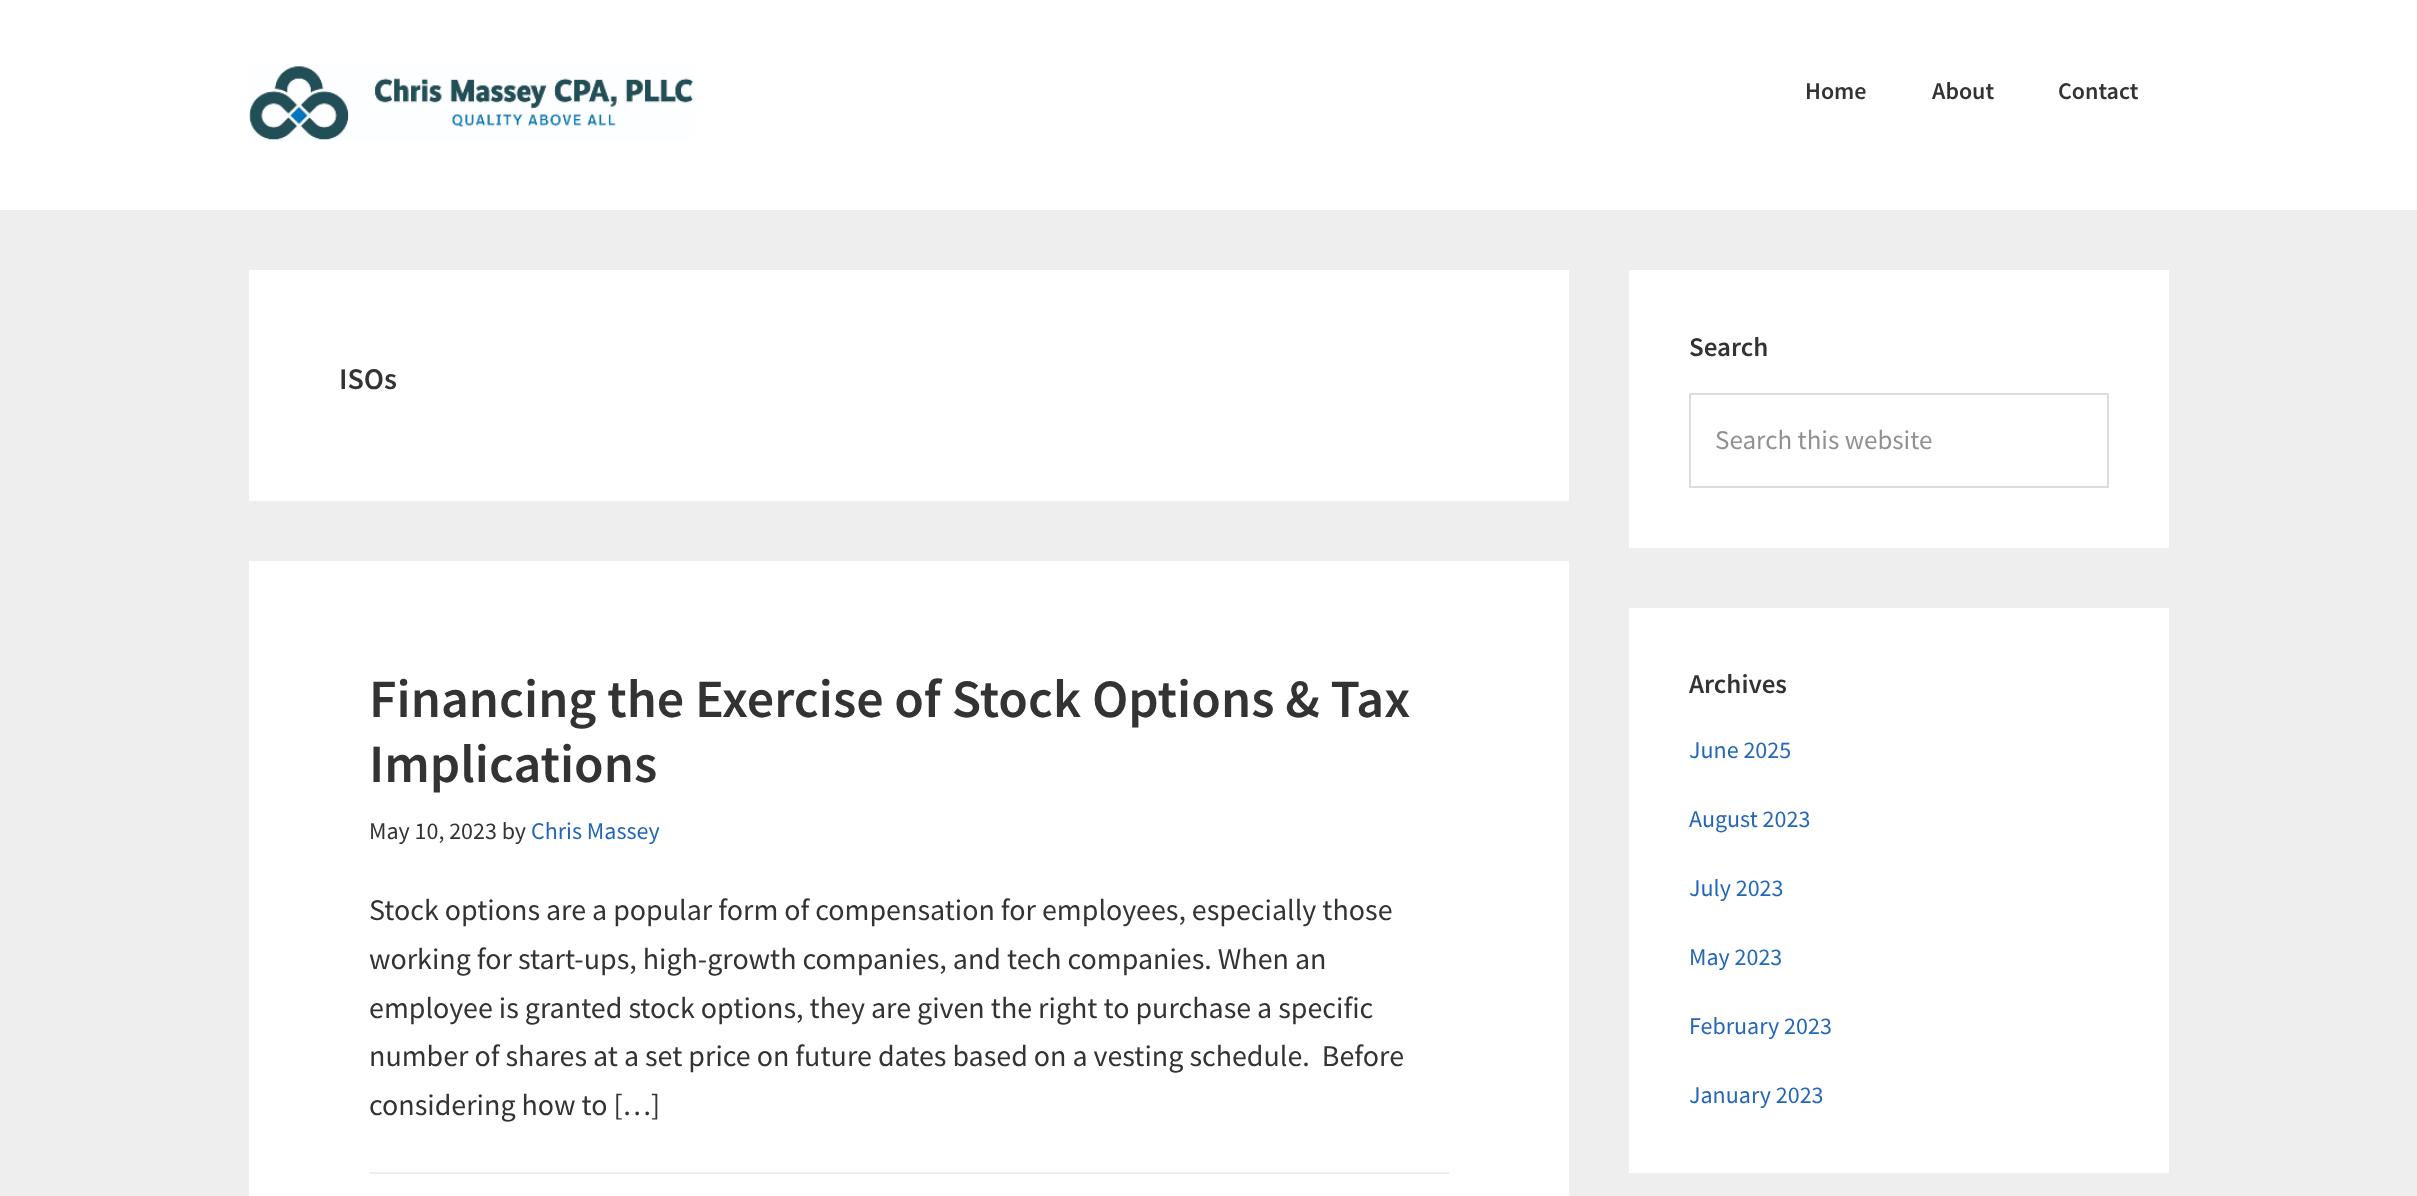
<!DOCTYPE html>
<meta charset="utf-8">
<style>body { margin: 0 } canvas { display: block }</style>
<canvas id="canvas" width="2417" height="1196"></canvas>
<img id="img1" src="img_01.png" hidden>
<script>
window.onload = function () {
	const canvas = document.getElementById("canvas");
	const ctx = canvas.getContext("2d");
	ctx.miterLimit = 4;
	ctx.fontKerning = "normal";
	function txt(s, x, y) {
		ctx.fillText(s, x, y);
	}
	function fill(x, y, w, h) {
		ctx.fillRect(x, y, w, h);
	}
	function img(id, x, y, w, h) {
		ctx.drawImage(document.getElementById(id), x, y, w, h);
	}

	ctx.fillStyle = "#EEEEEE";
	fill(0, 0, 2417, 1196);
	ctx.fillStyle = "#FFFFFF";
	fill(0, 0, 2417, 210);
	img("img1", 249, 65, 445, 76);
	fill(249, 270, 1320, 231);
	fill(249, 561, 1320, 635);
	ctx.fillStyle = "#EEEEEE";
	fill(369, 1172, 1080, 2);
	ctx.fillStyle = "#FFFFFF";
	fill(1629, 270, 540, 278);
	ctx.strokeStyle = "#DDDDDD";
	ctx.lineWidth = 2;
	ctx.strokeRect(1690, 394, 418, 93);
	fill(1629, 608, 540, 565);
	ctx.font = "600 24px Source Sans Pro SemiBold";
	ctx.fillStyle = "#333333";
	txt("Home", 1805, 99);
	txt("About", 1932, 99);
	txt("Contact", 2058, 99);
	ctx.font = "600 30px Source Sans Pro SemiBold";
	txt("ISOs", 339, 389);
	ctx.font = "600 54px Source Sans Pro SemiBold";
	txt("Financing the Exercise of Stock Options & Tax", 369, 717);
	txt("Implications", 369, 782);
	ctx.font = "24px Source Sans Pro";
	txt("May 10, 2023 by", 369, 839);
	ctx.fillStyle = "#2467B9";
	txt("Chris Massey", 531, 839);
	ctx.font = "30px Source Sans Pro";
	ctx.fillStyle = "#333333";
	txt("Stock options are a popular form of compensation for employees, especially those", 369, 920);
	txt("working for start-ups, high-growth companies, and tech companies. When an", 369, 969);
	txt("employee is granted stock options, they are given the right to purchase a specific", 369, 1018);
	txt("number of shares at a set price on future dates based on a vesting schedule.  Before", 369, 1066);
	txt("considering how to […]", 369, 1115);
	ctx.font = "600 27px Source Sans Pro SemiBold";
	txt("Search", 1689, 356);
	ctx.font = "27px Source Sans Pro";
	ctx.fillStyle = "#919191";
	txt("Search this website", 1715, 449);
	ctx.font = "600 27px Source Sans Pro SemiBold";
	ctx.fillStyle = "#333333";
	txt("Archives", 1689, 693);
	ctx.font = "24px Source Sans Pro";
	ctx.fillStyle = "#2467B9";
	txt("June 2025", 1689, 758);
	txt("August 2023", 1689, 827);
	txt("July 2023", 1689, 896);
	txt("May 2023", 1689, 965);
	txt("February 2023", 1689, 1034);
	txt("January 2023", 1689, 1103);
};
</script>
